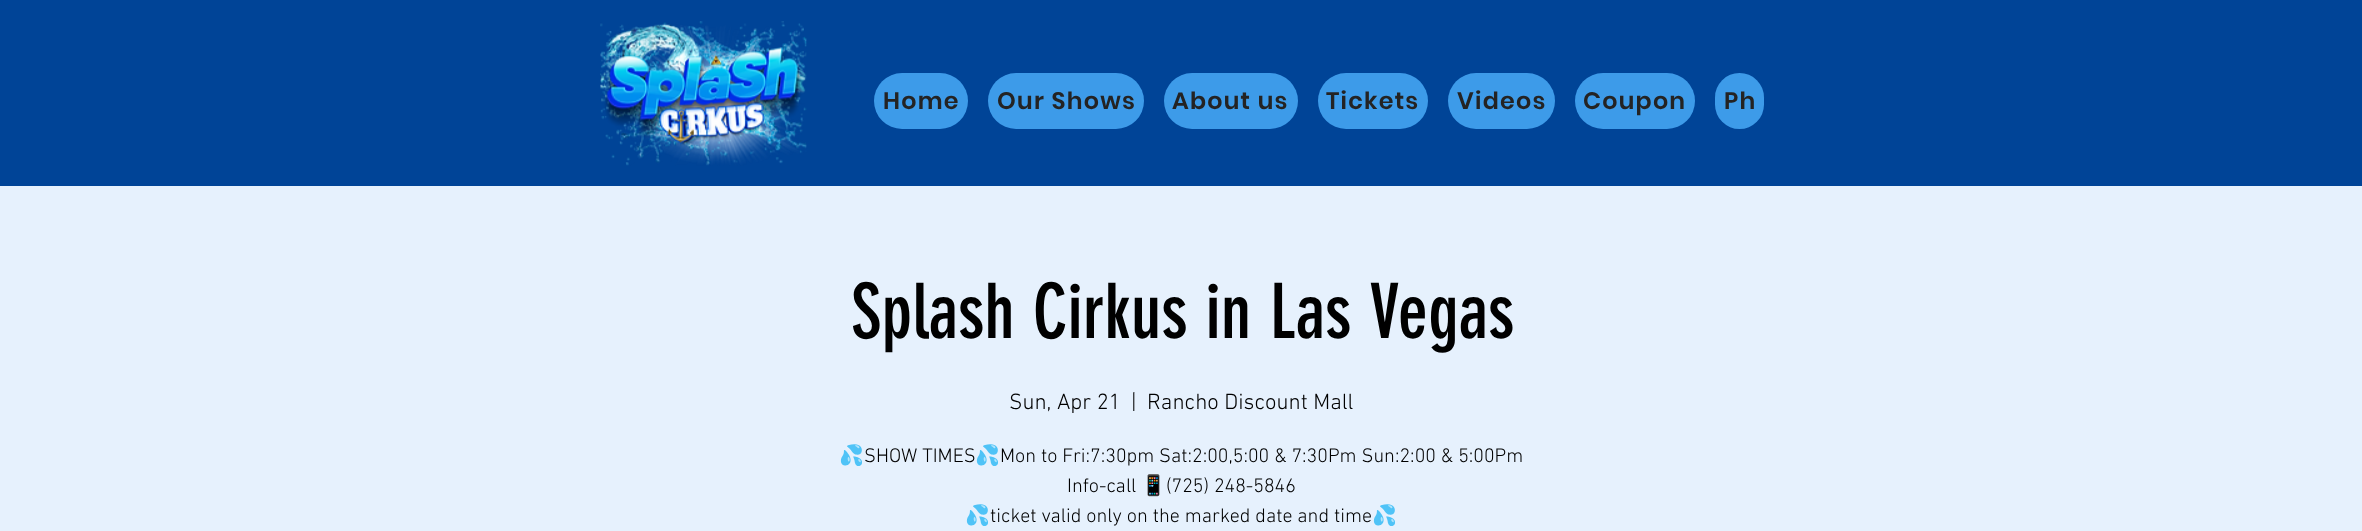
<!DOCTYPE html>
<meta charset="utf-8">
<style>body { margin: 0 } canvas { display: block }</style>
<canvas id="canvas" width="2362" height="531"></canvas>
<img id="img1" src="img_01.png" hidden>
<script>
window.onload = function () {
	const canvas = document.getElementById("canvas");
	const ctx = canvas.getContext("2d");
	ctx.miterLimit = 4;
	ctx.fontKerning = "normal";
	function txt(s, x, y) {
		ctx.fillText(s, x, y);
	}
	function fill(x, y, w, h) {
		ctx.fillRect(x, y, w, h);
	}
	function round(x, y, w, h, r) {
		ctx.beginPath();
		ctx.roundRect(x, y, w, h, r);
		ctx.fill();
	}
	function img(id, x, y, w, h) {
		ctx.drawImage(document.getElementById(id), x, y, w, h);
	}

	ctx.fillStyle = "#E6F1FD";
	fill(0, 0, 2362, 531);
	ctx.fillStyle = "#004497";
	fill(0, 0, 2362, 186);
	img("img1", 600, 21, 207, 145);
	ctx.fillStyle = "#3D9BE9";
	round(874, 73, 94, 56, 28);
	round(988, 73, 156, 56, 28);
	round(1164, 73, 134, 56, 28);
	round(1318, 73, 110, 56, 28);
	round(1448, 73, 107, 56, 28);
	round(1575, 73, 120, 56, 28);
	round(1715, 73, 49, 56, 28);
	ctx.letterSpacing = "1.25px";
	ctx.font = "600 23.75px Poppins";
	ctx.fillStyle = "#242323";
	txt("Home", 883, 109);
	txt("Our Shows", 997, 109);
	txt("About us", 1172, 109);
	txt("Tickets", 1326, 109);
	txt("Videos", 1457, 109);
	txt("Coupon", 1583, 109);
	txt("Ph", 1724, 109);
	ctx.letterSpacing = "0px";
	ctx.font = "75px 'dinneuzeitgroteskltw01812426'";
	ctx.fillStyle = "#000000";
	txt("Splash Cirkus in Las Vegas", 851, 338);
	ctx.font = "300 22.5px 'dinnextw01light'";
	txt("Sun, Apr 21", 1009, 409);
	txt("|", 1131, 409);
	txt("Rancho Discount Mall", 1147, 409);
	ctx.font = "20px Noto Color Emoji";
	txt("💦", 839, 462);
	ctx.font = "300 20px 'dinnextw01light'";
	txt("SHOW TIMES", 864, 462);
	ctx.font = "20px Noto Color Emoji";
	txt("💦", 975, 462);
	ctx.font = "300 20px 'dinnextw01light'";
	txt("Mon to Fri:7:30pm Sat:2:00,5:00 & 7:30Pm Sun:2:00 & 5:00Pm", 1000, 462);
	txt("Info-call", 1067, 492);
	ctx.font = "20px Noto Color Emoji";
	txt("📱", 1141, 492);
	ctx.font = "300 20px 'dinnextw01light'";
	txt("(725) 248-5846", 1166, 492);
	ctx.font = "20px Noto Color Emoji";
	txt("💦", 965, 522);
	ctx.font = "300 20px 'dinnextw01light'";
	txt("ticket valid only on the marked date and time", 990, 522);
	ctx.font = "20px Noto Color Emoji";
	txt("💦", 1372, 522);
};
</script>
